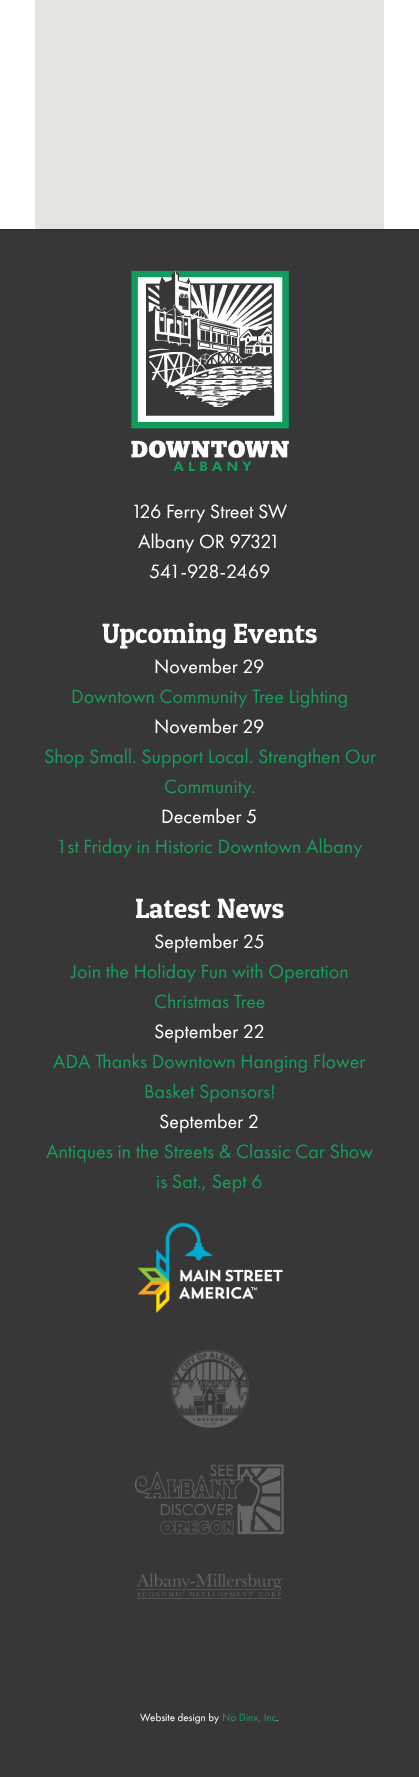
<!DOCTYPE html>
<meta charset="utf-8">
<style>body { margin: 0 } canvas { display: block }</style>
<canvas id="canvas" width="419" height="1777"></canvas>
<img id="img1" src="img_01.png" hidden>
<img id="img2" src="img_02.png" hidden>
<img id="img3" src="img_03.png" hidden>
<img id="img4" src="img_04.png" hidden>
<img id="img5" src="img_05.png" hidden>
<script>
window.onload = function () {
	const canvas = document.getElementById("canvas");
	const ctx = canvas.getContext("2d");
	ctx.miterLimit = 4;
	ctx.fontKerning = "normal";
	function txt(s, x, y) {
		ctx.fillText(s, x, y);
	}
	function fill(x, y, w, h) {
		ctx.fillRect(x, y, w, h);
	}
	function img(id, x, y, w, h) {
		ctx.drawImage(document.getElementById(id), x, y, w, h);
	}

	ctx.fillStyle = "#373737";
	fill(0, 0, 419, 1777);
	ctx.fillStyle = "rgba(0, 0, 0, 0.3)";
	ctx.filter = "blur(2px)";
	ctx.beginPath();
	ctx.rect(0, -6, 419, 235);
	ctx.fill();
	ctx.filter = "none";
	ctx.fillStyle = "#FFFFFF";
	fill(0, 0, 419, 229);
	ctx.fillStyle = "#E5E3DF";
	fill(35, 0, 349, 229);
	img("img1", 131, 270, 158, 201);
	img("img2", 137, 1222, 146, 92);
	img("img3", 171, 1350, 78, 78);
	img("img4", 135, 1464, 149, 72);
	img("img5", 136, 1573, 146, 26);
	ctx.font = "20px Futura PT";
	ctx.fillStyle = "#FFFFFF";
	txt("126 Ferry Street SW", 131, 518);
	txt("Albany OR 97321", 138, 548);
	txt("541-928-2469", 149, 578);
	ctx.font = "28px Patua One";
	txt("Upcoming Events", 102, 643);
	ctx.font = "20px Futura PT";
	txt("November 29", 154, 673);
	ctx.fillStyle = "#179D5C";
	txt("Downtown Community Tree Lighting", 71, 703);
	ctx.fillStyle = "#FFFFFF";
	txt("November 29", 154, 733);
	ctx.fillStyle = "#179D5C";
	txt("Shop Small. Support Local. Strengthen Our", 44, 763);
	txt("Community.", 164, 793);
	ctx.fillStyle = "#FFFFFF";
	txt("December 5", 161, 823);
	ctx.fillStyle = "#179D5C";
	txt("1st Friday in Historic Downtown Albany", 56, 853);
	ctx.font = "28px Patua One";
	ctx.fillStyle = "#FFFFFF";
	txt("Latest News", 135, 918);
	ctx.font = "20px Futura PT";
	txt("September 25", 154, 948);
	ctx.fillStyle = "#179D5C";
	txt("Join the Holiday Fun with Operation", 71, 978);
	txt("Christmas Tree", 154, 1008);
	ctx.fillStyle = "#FFFFFF";
	txt("September 22", 154, 1038);
	ctx.fillStyle = "#179D5C";
	txt("ADA Thanks Downtown Hanging Flower", 53, 1068);
	txt("Basket Sponsors!", 144, 1098);
	ctx.fillStyle = "#FFFFFF";
	txt("September 2", 159, 1128);
	ctx.fillStyle = "#179D5C";
	txt("Antiques in the Streets & Classic Car Show", 46, 1158);
	txt("is Sat., Sept 6", 156, 1188);
	ctx.font = "11px Futura PT";
	ctx.fillStyle = "#FFFFFF";
	txt("Website design by", 140, 1721);
	ctx.fillStyle = "#179D5C";
	txt("No Dinx, Inc", 222, 1721);
	ctx.fillStyle = "#FFFFFF";
	txt(".", 276, 1721);
};
</script>
